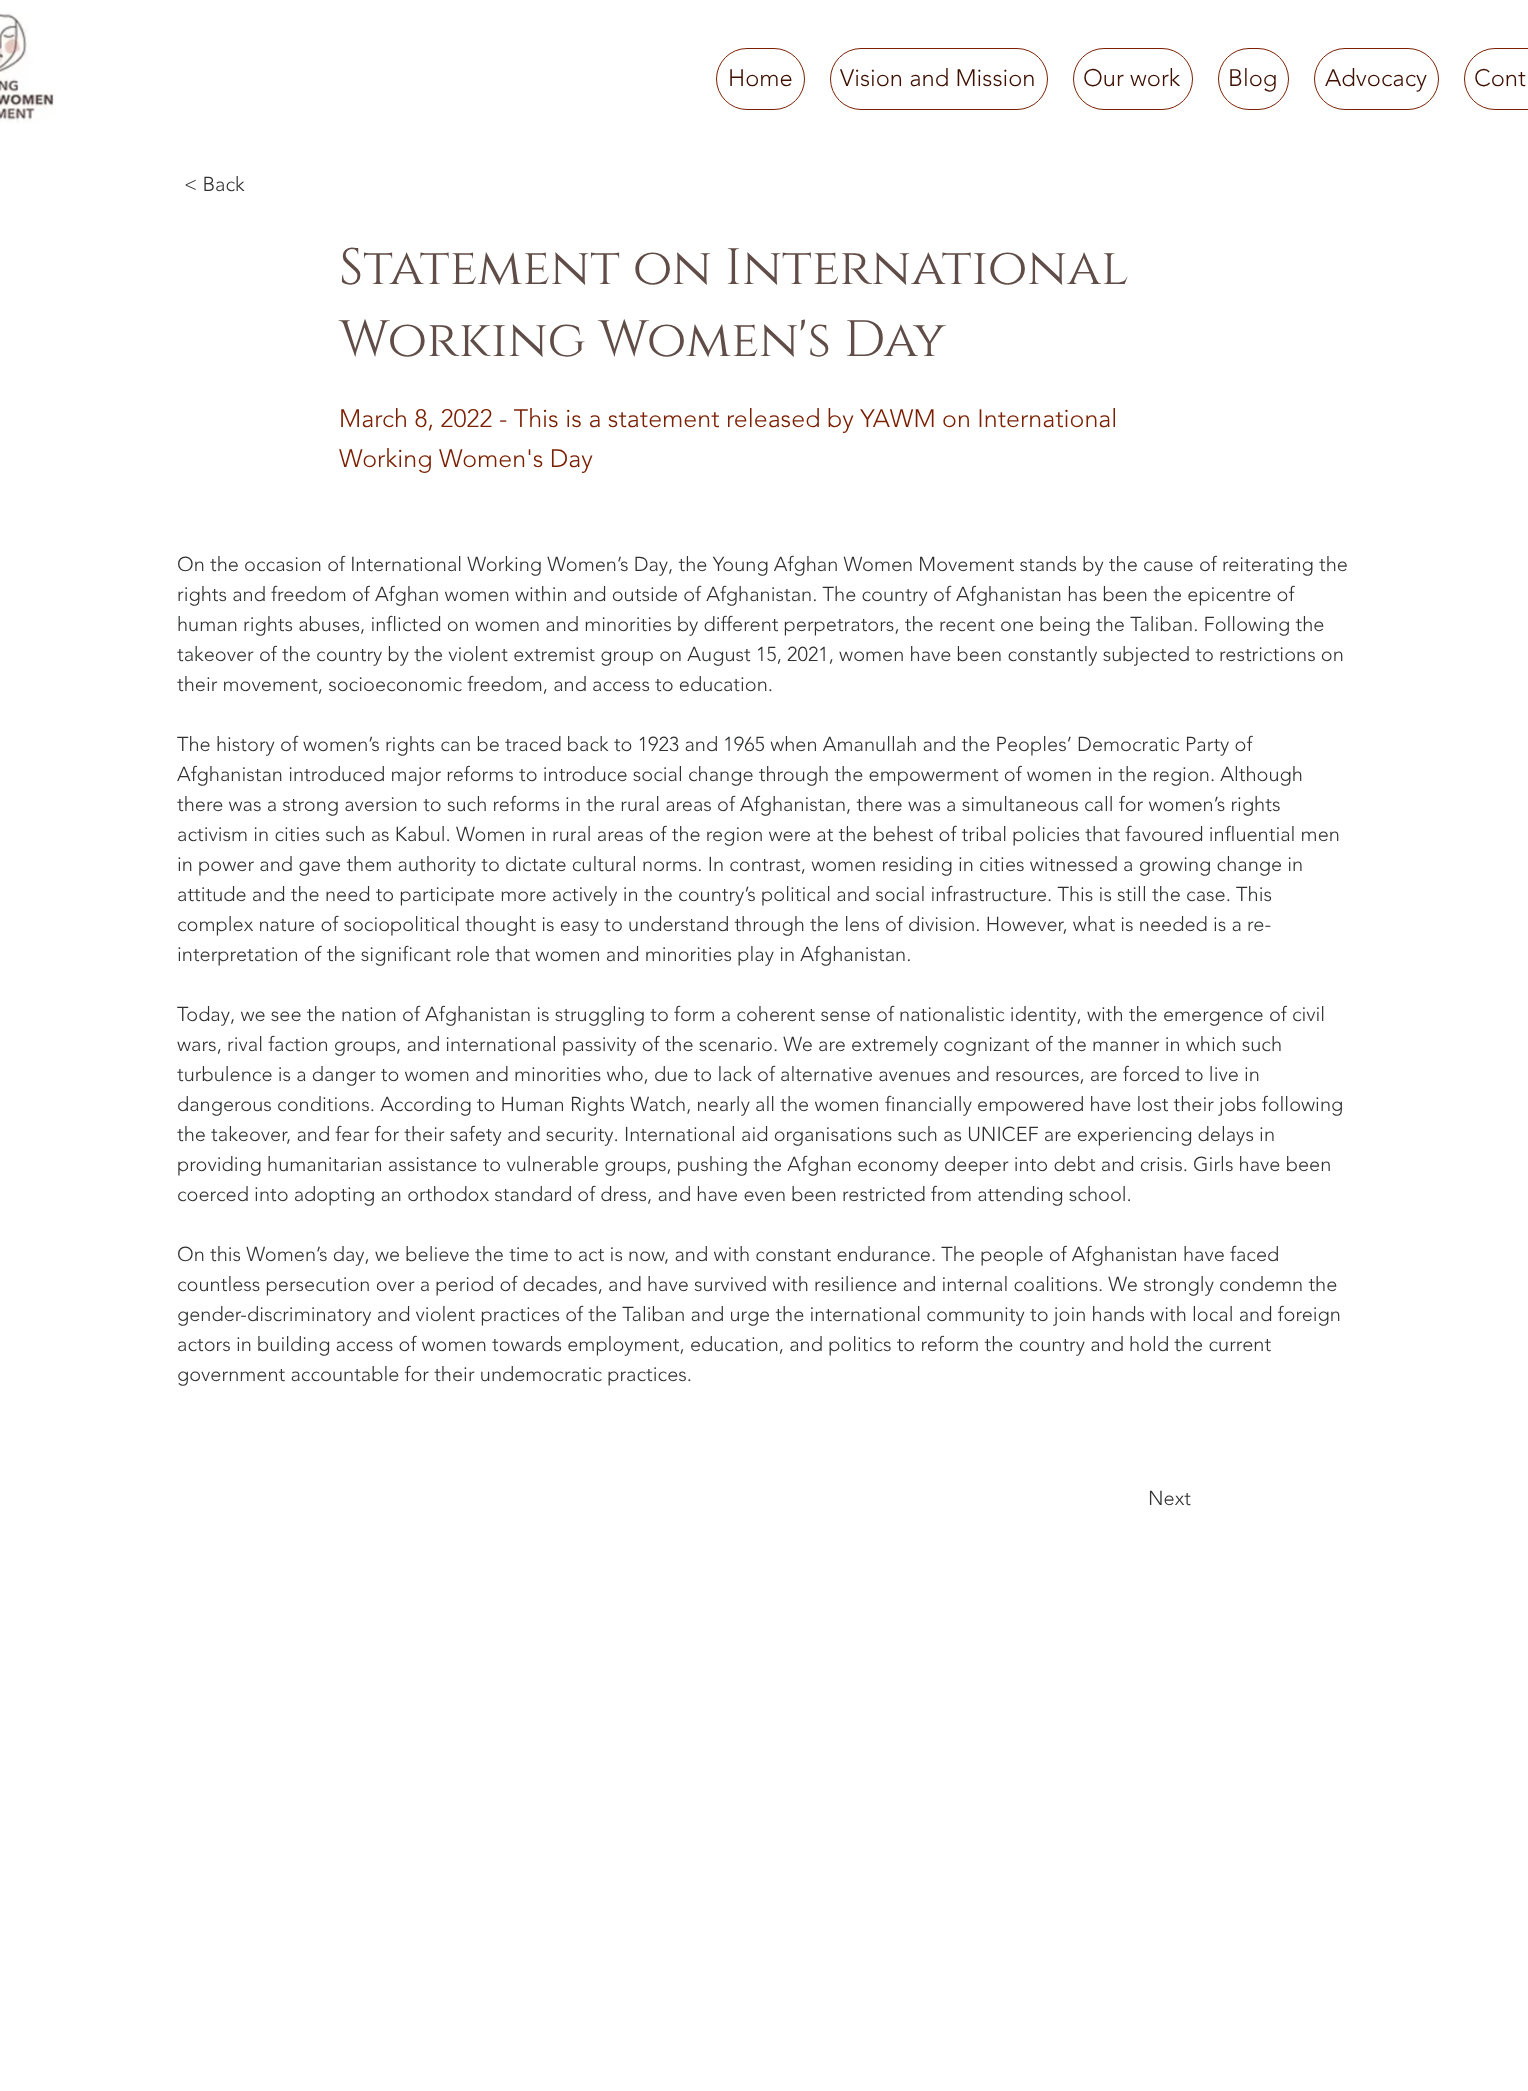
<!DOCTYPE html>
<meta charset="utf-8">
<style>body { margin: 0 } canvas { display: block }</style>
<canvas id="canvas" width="1528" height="2091"></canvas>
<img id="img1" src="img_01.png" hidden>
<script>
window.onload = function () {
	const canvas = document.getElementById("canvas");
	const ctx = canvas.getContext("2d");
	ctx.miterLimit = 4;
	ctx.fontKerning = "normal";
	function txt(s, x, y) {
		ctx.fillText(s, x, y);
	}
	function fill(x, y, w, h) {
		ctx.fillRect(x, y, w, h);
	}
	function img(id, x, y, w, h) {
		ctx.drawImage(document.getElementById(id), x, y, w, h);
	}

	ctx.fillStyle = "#FFFFFF";
	fill(0, 0, 1528, 2091);
	img("img1", 0, 12, 54, 111);
	ctx.beginPath();
	ctx.roundRect(716.5, 48.5, 88, 61, 30.5);
	ctx.strokeStyle = "#7B2003";
	ctx.stroke();
	ctx.beginPath();
	ctx.roundRect(830.5, 48.5, 217, 61, 30.5);
	ctx.stroke();
	ctx.beginPath();
	ctx.roundRect(1073.5, 48.5, 119, 61, 30.5);
	ctx.stroke();
	ctx.beginPath();
	ctx.roundRect(1218.5, 48.5, 70, 61, 30.5);
	ctx.stroke();
	ctx.beginPath();
	ctx.roundRect(1314.5, 48.5, 124, 61, 30.5);
	ctx.stroke();
	ctx.beginPath();
	ctx.roundRect(1464.5, 48.5, 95, 61, 30.5);
	ctx.stroke();
	ctx.font = "300 23.75px 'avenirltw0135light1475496'";
	ctx.fillStyle = "#3E1002";
	txt("Home", 728, 86);
	txt("Vision and Mission", 840, 86);
	txt("Our work", 1083, 86);
	txt("Blog", 1228, 86);
	txt("Advocacy", 1325, 86);
	txt("Cont", 1474, 86);
	ctx.font = "300 20px 'avenirltw0135light1475496'";
	ctx.fillStyle = "#303131";
	txt("< Back", 184, 191);
	ctx.font = "51.25px Cinzel";
	ctx.fillStyle = "#604D47";
	txt("Statement on International", 339, 284);
	txt("Working Women's Day", 339, 356);
	ctx.font = "300 25px 'avenirltw0135light1475496'";
	ctx.fillStyle = "#7B2003";
	txt("March 8, 2022 - This is a statement released by YAWM on International", 339, 427);
	txt("Working Women's Day", 339, 467);
	ctx.font = "300 20px 'avenirltw0135light1475496'";
	ctx.fillStyle = "#303131";
	txt("Next", 1148, 1505);
	txt("On the occasion of International Working Women’s Day, the Young Afghan Women Movement stands by the cause of reiterating the", 177, 571);
	txt("rights and freedom of Afghan women within and outside of Afghanistan. The country of Afghanistan has been the epicentre of", 177, 601);
	txt("human rights abuses, inflicted on women and minorities by different perpetrators, the recent one being the Taliban. Following the", 177, 631);
	txt("takeover of the country by the violent extremist group on August 15, 2021, women have been constantly subjected to restrictions on", 177, 661);
	txt("their movement, socioeconomic freedom, and access to education.", 177, 691);
	txt("The history of women’s rights can be traced back to 1923 and 1965 when Amanullah and the Peoples’ Democratic Party of", 177, 751);
	txt("Afghanistan introduced major reforms to introduce social change through the empowerment of women in the region. Although", 177, 781);
	txt("there was a strong aversion to such reforms in the rural areas of Afghanistan, there was a simultaneous call for women’s rights", 177, 811);
	txt("activism in cities such as Kabul. Women in rural areas of the region were at the behest of tribal policies that favoured influential men", 177, 841);
	txt("in power and gave them authority to dictate cultural norms. In contrast, women residing in cities witnessed a growing change in", 177, 871);
	txt("attitude and the need to participate more actively in the country’s political and social infrastructure. This is still the case. This", 177, 901);
	txt("complex nature of sociopolitical thought is easy to understand through the lens of division. However, what is needed is a re-", 177, 931);
	txt("interpretation of the significant role that women and minorities play in Afghanistan.", 177, 961);
	txt("Today, we see the nation of Afghanistan is struggling to form a coherent sense of nationalistic identity, with the emergence of civil", 177, 1021);
	txt("wars, rival faction groups, and international passivity of the scenario. We are extremely cognizant of the manner in which such", 177, 1051);
	txt("turbulence is a danger to women and minorities who, due to lack of alternative avenues and resources, are forced to live in", 177, 1081);
	txt("dangerous conditions. According to Human Rights Watch, nearly all the women financially empowered have lost their jobs following", 177, 1111);
	txt("the takeover, and fear for their safety and security. International aid organisations such as UNICEF are experiencing delays in", 177, 1141);
	txt("providing humanitarian assistance to vulnerable groups, pushing the Afghan economy deeper into debt and crisis. Girls have been", 177, 1171);
	txt("coerced into adopting an orthodox standard of dress, and have even been restricted from attending school.", 177, 1201);
	txt("On this Women’s day, we believe the time to act is now, and with constant endurance. The people of Afghanistan have faced", 177, 1261);
	txt("countless persecution over a period of decades, and have survived with resilience and internal coalitions. We strongly condemn the", 177, 1291);
	txt("gender-discriminatory and violent practices of the Taliban and urge the international community to join hands with local and foreign", 177, 1321);
	txt("actors in building access of women towards employment, education, and politics to reform the country and hold the current", 177, 1351);
	txt("government accountable for their undemocratic practices.", 177, 1381);
};
</script>
